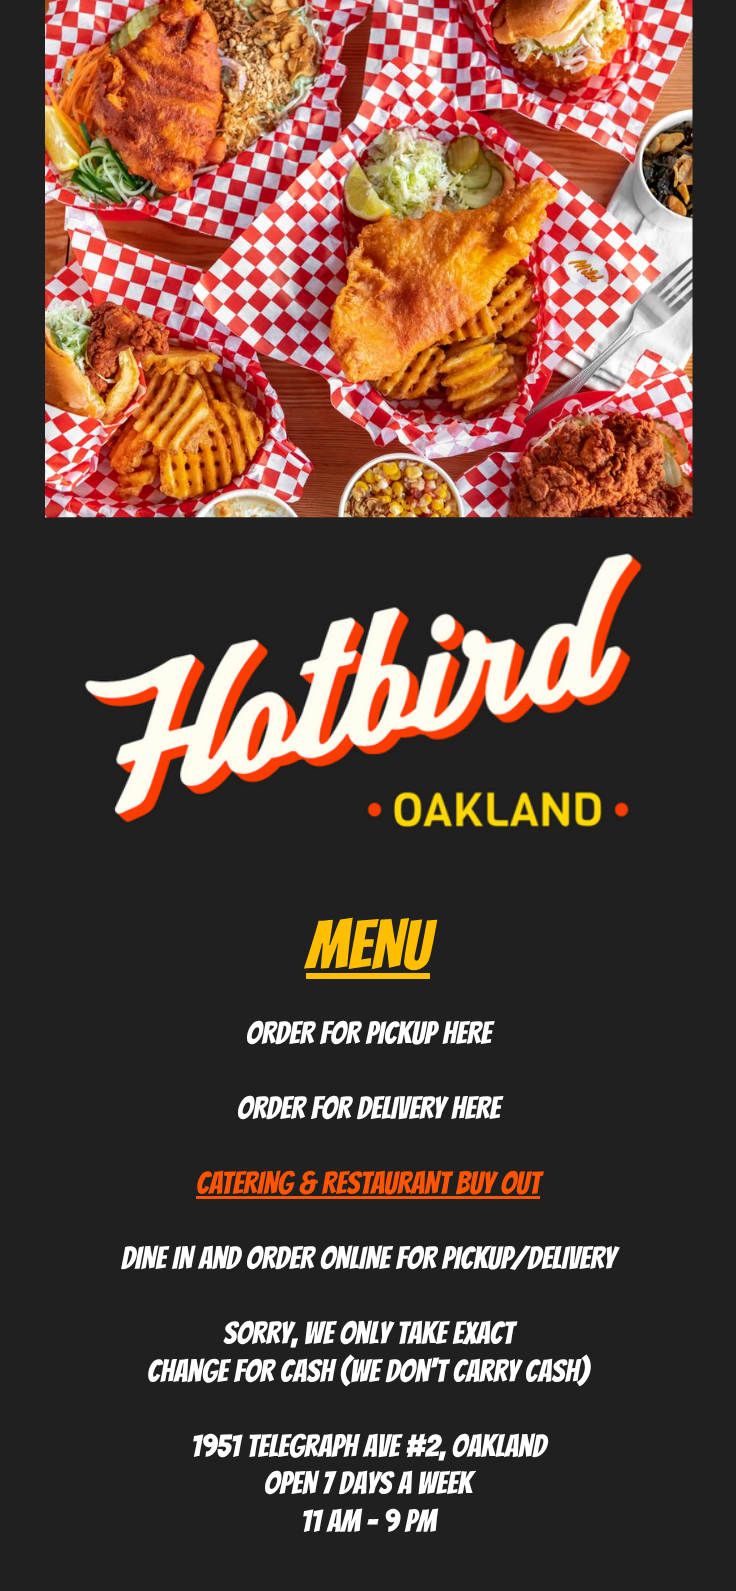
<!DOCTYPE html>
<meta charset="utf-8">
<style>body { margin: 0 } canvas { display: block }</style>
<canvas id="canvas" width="736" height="1591"></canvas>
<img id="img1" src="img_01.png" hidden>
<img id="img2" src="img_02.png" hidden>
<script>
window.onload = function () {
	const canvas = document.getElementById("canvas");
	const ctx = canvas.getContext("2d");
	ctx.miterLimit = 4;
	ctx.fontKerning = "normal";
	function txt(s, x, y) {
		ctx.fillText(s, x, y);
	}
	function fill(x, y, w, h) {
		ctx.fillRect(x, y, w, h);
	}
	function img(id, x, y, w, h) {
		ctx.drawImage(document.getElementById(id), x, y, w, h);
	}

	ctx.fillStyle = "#202020";
	fill(0, 0, 736, 1591);
	img("img1", 45, 0, 648, 518);
	img("img2", 56, 517, 626, 312);
	ctx.fillStyle = "#FFBF00";
	fill(306, 973, 124, 6);
	ctx.fillStyle = "#FF5502";
	fill(196, 1196, 344, 3);
	ctx.font = "68px Bangers";
	ctx.fillStyle = "#FFBF00";
	txt("MENU", 306, 969);
	ctx.font = "31.25px Bangers";
	ctx.fillStyle = "#FFFFFF";
	txt("ORDER FOR PICKUP HERE", 246, 1044);
	txt("ORDER FOR DELIVERY HERE", 237, 1119);
	ctx.fillStyle = "#FF5502";
	txt("CATERING & RESTAURANT BUY OUT", 196, 1194);
	ctx.fillStyle = "#FFFFFF";
	txt("DINE IN and ORDER ONLINE FOR PICKUP/DELIVERY", 121, 1269);
	txt("sorry, we only take exact", 223, 1344);
	txt("change for cash (we don't carry cash)", 147, 1382);
	txt("1951 Telegraph ave #2, Oakland", 191, 1457);
	txt("OPEN 7 Days a Week", 264, 1494);
	txt("11 am - 9 pm", 301, 1532);
};
</script>
